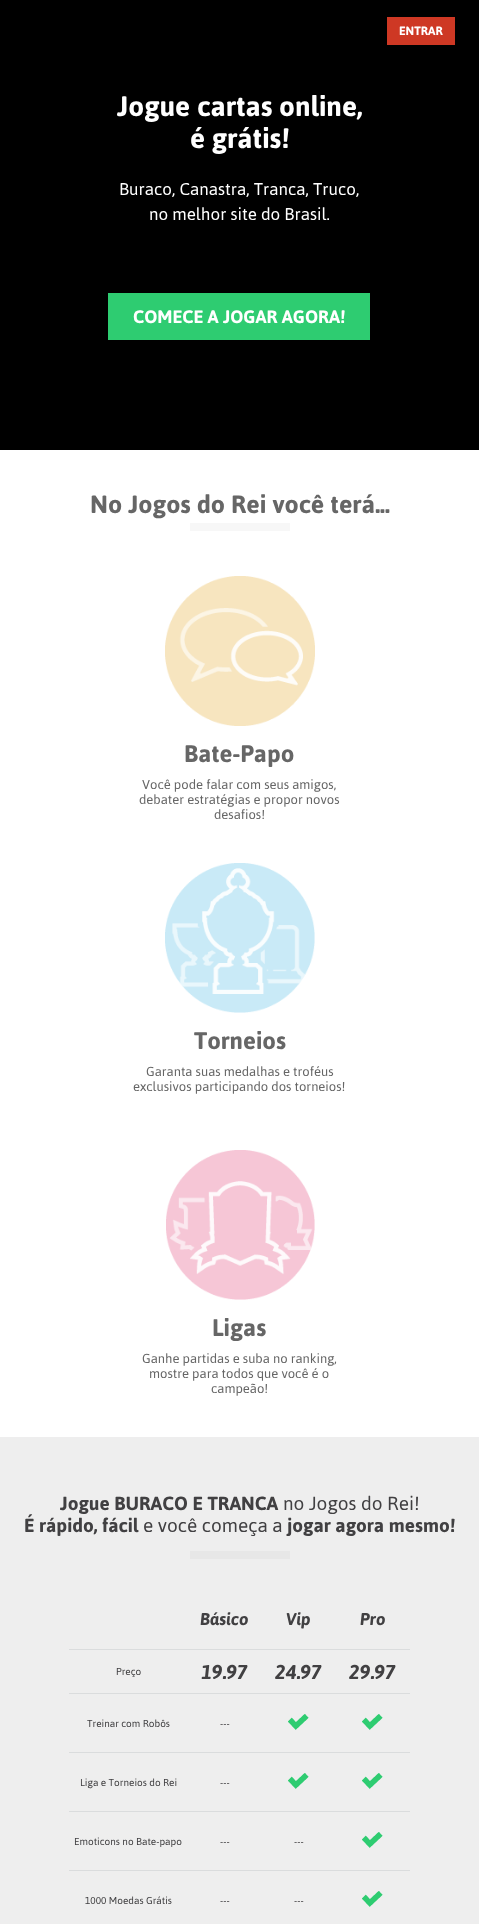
<!DOCTYPE html>
<meta charset="utf-8">
<style>body { margin: 0 } canvas { display: block }</style>
<canvas id="canvas" width="479" height="1924"></canvas>
<img id="img1" src="img_01.png" hidden>
<img id="img2" src="img_02.png" hidden>
<img id="img3" src="img_03.png" hidden>
<img id="img4" src="img_04.png" hidden>
<script>
window.onload = function () {
	const canvas = document.getElementById("canvas");
	const ctx = canvas.getContext("2d");
	ctx.miterLimit = 4;
	ctx.fontKerning = "normal";
	function txt(s, x, y) {
		ctx.fillText(s, x, y);
	}
	function fill(x, y, w, h) {
		ctx.fillRect(x, y, w, h);
	}
	function img(id, x, y, w, h) {
		ctx.drawImage(document.getElementById(id), x, y, w, h);
	}

	ctx.fillStyle = "#FFFFFF";
	fill(0, 0, 479, 1924);
	ctx.fillStyle = "#000000";
	fill(0, 0, 479, 450);
	ctx.fillStyle = "#CE3824";
	fill(387, 17, 68, 28);
	ctx.fillStyle = "#2ECC71";
	fill(108, 293, 262, 47);
	ctx.fillStyle = "#F7F7F7";
	fill(190, 523, 100, 8);
	img("img1", 165, 576, 150, 150);
	img("img2", 165, 863, 150, 150);
	img("img3", 166, 1150, 149, 150);
	ctx.fillStyle = "#EEEEEE";
	fill(0, 1437, 479, 487);
	ctx.fillStyle = "#E7E7E7";
	fill(190, 1551, 100, 8);
	ctx.fillStyle = "#DADCDD";
	fill(69, 1649, 341, 1);
	fill(69, 1693, 341, 1);
	fill(69, 1752, 341, 1);
	img("img4", 362, 1714, 21, 16);
	img("img4", 288, 1714, 21, 16);
	fill(69, 1811, 341, 1);
	img("img4", 362, 1773, 21, 16);
	img("img4", 288, 1773, 21, 16);
	fill(69, 1870, 341, 1);
	img("img4", 362, 1832, 21, 16);
	img("img4", 362, 1891, 21, 16);
	ctx.font = "bold 12px Asap";
	ctx.fillStyle = "#FFFFFF";
	txt("ENTRAR", 399, 35);
	ctx.font = "bold 28px Asap";
	txt("Jogue cartas online,", 117, 116);
	txt("é grátis!", 190, 148);
	ctx.font = "17px Asap";
	txt("Buraco, Canastra, Tranca, Truco,", 119, 195);
	txt("no melhor site do Brasil.", 149, 220);
	ctx.font = "bold 18px Asap";
	txt("COMECE A JOGAR AGORA!", 133, 323);
	ctx.font = "bold 25px Asap";
	ctx.fillStyle = "#666666";
	txt("No Jogos do Rei você terá...", 90, 513);
	ctx.font = "bold 24px Asap";
	txt("Bate-Papo", 184, 762);
	ctx.font = "13px Asap";
	txt("Você pode falar com seus amigos,", 142, 789);
	txt("debater estratégias e propor novos", 139, 804);
	txt("desafios!", 214, 819);
	ctx.font = "bold 24px Asap";
	txt("Torneios", 194, 1049);
	ctx.font = "13px Asap";
	txt("Garanta suas medalhas e troféus", 146, 1076);
	txt("exclusivos participando dos torneios!", 133, 1091);
	ctx.font = "bold 24px Asap";
	txt("Ligas", 212, 1336);
	ctx.font = "13px Asap";
	txt("Ganhe partidas e suba no ranking,", 142, 1363);
	txt("mostre para todos que você é o", 149, 1378);
	txt("campeão!", 211, 1393);
	ctx.font = "bold 19px Asap";
	ctx.fillStyle = "#414042";
	txt("Jogue BURACO E TRANCA", 60, 1510);
	ctx.font = "19px Asap";
	txt("no Jogos do Rei!", 283, 1510);
	ctx.font = "bold 19px Asap";
	txt("É rápido, fácil", 24, 1532);
	ctx.font = "19px Asap";
	txt("e você começa a", 143, 1532);
	ctx.font = "bold 19px Asap";
	txt("jogar agora mesmo!", 287, 1532);
	ctx.font = "italic bold 17px Asap";
	txt("Básico", 200, 1625);
	txt("Vip", 286, 1625);
	txt("Pro", 360, 1625);
	ctx.font = "10px Asap";
	txt("Preço", 116, 1675);
	ctx.font = "italic bold 20px Asap";
	txt("19.97", 201, 1679);
	txt("24.97", 275, 1679);
	txt("29.97", 349, 1679);
	ctx.font = "10px Asap";
	txt("Treinar com Robôs", 87, 1727);
	txt("---", 220, 1727);
	txt("Liga e Torneios do Rei", 80, 1786);
	txt("---", 220, 1786);
	txt("Emoticons no Bate-papo", 74, 1845);
	txt("---", 220, 1845);
	txt("---", 294, 1845);
	txt("1000 Moedas Grátis", 85, 1904);
	txt("---", 220, 1904);
	txt("---", 294, 1904);
};
</script>
